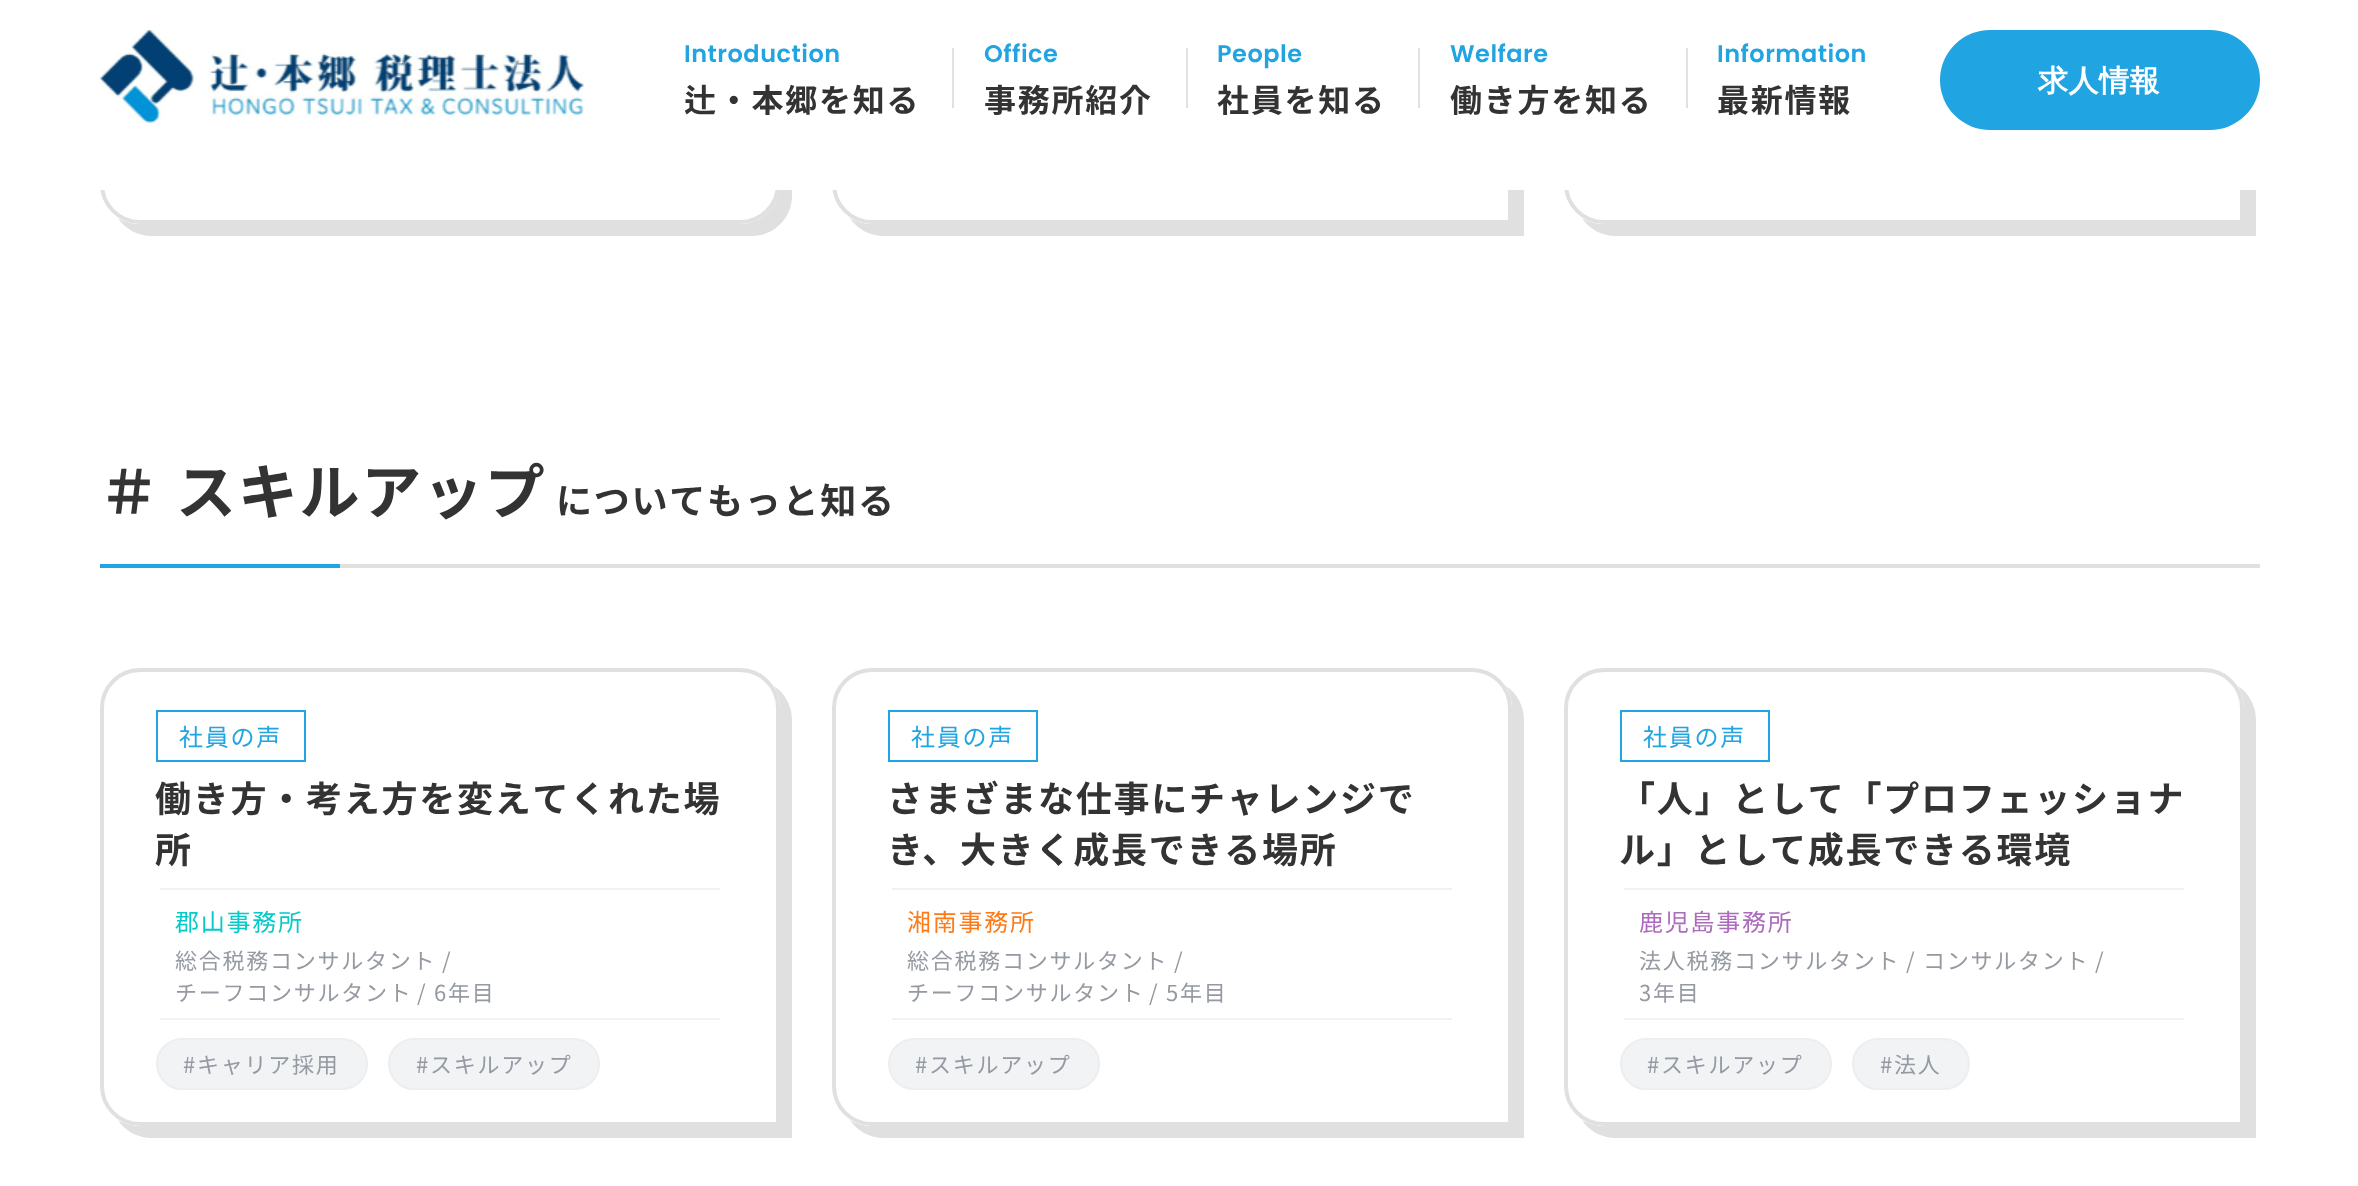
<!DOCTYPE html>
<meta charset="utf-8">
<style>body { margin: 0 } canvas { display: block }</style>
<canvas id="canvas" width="2358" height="1186"></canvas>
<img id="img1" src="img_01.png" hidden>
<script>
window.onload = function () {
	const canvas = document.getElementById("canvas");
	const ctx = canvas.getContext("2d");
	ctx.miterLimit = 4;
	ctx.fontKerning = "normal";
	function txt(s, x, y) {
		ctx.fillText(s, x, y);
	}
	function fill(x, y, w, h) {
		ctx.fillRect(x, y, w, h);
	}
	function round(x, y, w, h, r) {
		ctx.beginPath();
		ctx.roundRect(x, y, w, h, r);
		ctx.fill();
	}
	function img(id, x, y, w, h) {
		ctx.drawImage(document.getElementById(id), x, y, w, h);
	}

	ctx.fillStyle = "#FFFFFF";
	fill(0, 0, 2358, 1186);
	ctx.fillStyle = "#E0E0E0";
	ctx.beginPath();
	ctx.moveTo(118, 218);
	ctx.bezierCurveTo(125, 229, 138, 236, 152, 236);
	ctx.lineTo(752, 236);
	ctx.bezierCurveTo(774, 236, 792, 218, 792, 196);
	ctx.lineTo(792, -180);
	ctx.bezierCurveTo(792, -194, 785, -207, 774, -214);
	ctx.bezierCurveTo(778, -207, 780, -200, 780, -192);
	ctx.lineTo(780, 184);
	ctx.bezierCurveTo(780, 206, 762, 224, 740, 224);
	ctx.lineTo(140, 224);
	ctx.bezierCurveTo(132, 224, 125, 222, 118, 218);
	ctx.closePath();
	ctx.fill();
	ctx.fillStyle = "#FFFFFF";
	ctx.beginPath();
	ctx.roundRect(102, -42, 676, 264, 38);
	ctx.fill();
	ctx.strokeStyle = "#E0E0E0";
	ctx.lineWidth = 4;
	ctx.stroke();
	ctx.fillStyle = "#E0E0E0";
	ctx.beginPath();
	ctx.moveTo(850, 218);
	ctx.bezierCurveTo(857, 229, 870, 236, 884, 236);
	ctx.lineTo(1524, 236);
	ctx.lineTo(1524, -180);
	ctx.bezierCurveTo(1524, -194, 1517, -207, 1506, -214);
	ctx.bezierCurveTo(1510, -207, 1512, -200, 1512, -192);
	ctx.lineTo(1512, 224);
	ctx.lineTo(872, 224);
	ctx.bezierCurveTo(864, 224, 857, 222, 850, 218);
	ctx.closePath();
	ctx.fill();
	ctx.fillStyle = "#FFFFFF";
	ctx.beginPath();
	ctx.moveTo(872, -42);
	ctx.lineTo(1472, -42);
	ctx.bezierCurveTo(1493, -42, 1510, -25, 1510, -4);
	ctx.lineTo(1510, 222);
	ctx.lineTo(872, 222);
	ctx.bezierCurveTo(851, 222, 834, 205, 834, 184);
	ctx.lineTo(834, -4);
	ctx.bezierCurveTo(834, -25, 851, -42, 872, -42);
	ctx.closePath();
	ctx.fill();
	ctx.stroke();
	ctx.fillStyle = "#E0E0E0";
	ctx.beginPath();
	ctx.moveTo(1582, 218);
	ctx.bezierCurveTo(1589, 229, 1602, 236, 1616, 236);
	ctx.lineTo(2256, 236);
	ctx.lineTo(2256, -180);
	ctx.bezierCurveTo(2256, -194, 2249, -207, 2238, -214);
	ctx.bezierCurveTo(2242, -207, 2244, -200, 2244, -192);
	ctx.lineTo(2244, 224);
	ctx.lineTo(1604, 224);
	ctx.bezierCurveTo(1596, 224, 1589, 222, 1582, 218);
	ctx.closePath();
	ctx.fill();
	ctx.fillStyle = "#FFFFFF";
	ctx.beginPath();
	ctx.moveTo(1604, -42);
	ctx.lineTo(2204, -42);
	ctx.bezierCurveTo(2225, -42, 2242, -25, 2242, -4);
	ctx.lineTo(2242, 222);
	ctx.lineTo(1604, 222);
	ctx.bezierCurveTo(1583, 222, 1566, 205, 1566, 184);
	ctx.lineTo(1566, -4);
	ctx.bezierCurveTo(1566, -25, 1583, -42, 1604, -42);
	ctx.closePath();
	ctx.fill();
	ctx.stroke();
	fill(100, 0, 2156, 190);
	img("img1", 99, 30, 485, 93);
	ctx.fillStyle = "#E1E1E1";
	fill(952, 48, 2, 60);
	fill(1186, 48, 2, 60);
	fill(1418, 48, 2, 60);
	fill(1686, 48, 2, 60);
	ctx.fillStyle = "#21A4E2";
	round(1940, 30, 320, 100, 50);
	ctx.fillStyle = "#E0E0E0";
	fill(340, 564, 1920, 4);
	ctx.fillStyle = "#21A4E2";
	fill(100, 564, 240, 4);
	ctx.fillStyle = "#E0E0E0";
	ctx.beginPath();
	ctx.moveTo(118, 1120);
	ctx.bezierCurveTo(125, 1131, 138, 1138, 152, 1138);
	ctx.lineTo(792, 1138);
	ctx.lineTo(792, 720);
	ctx.bezierCurveTo(792, 706, 785, 693, 774, 686);
	ctx.bezierCurveTo(778, 693, 780, 700, 780, 708);
	ctx.lineTo(780, 1126);
	ctx.lineTo(140, 1126);
	ctx.bezierCurveTo(132, 1126, 125, 1124, 118, 1120);
	ctx.closePath();
	ctx.fill();
	ctx.fillStyle = "#FFFFFF";
	ctx.beginPath();
	ctx.roundRect(102, 670, 676, 454, [38, 38, 0, 38]);
	ctx.fill();
	ctx.stroke();
	ctx.strokeStyle = "#21A4E2";
	ctx.lineWidth = 2;
	ctx.strokeRect(157, 711, 148, 50);
	ctx.fillStyle = "#F2F2F2";
	fill(160, 888, 560, 2);
	fill(160, 1018, 560, 2);
	ctx.fillStyle = "#F1F3F5";
	ctx.beginPath();
	ctx.roundRect(157, 1039, 210, 50, 25);
	ctx.fill();
	ctx.strokeStyle = "#EEEEEE";
	ctx.stroke();
	ctx.beginPath();
	ctx.roundRect(389, 1039, 210, 50, 25);
	ctx.fill();
	ctx.stroke();
	ctx.fillStyle = "#E0E0E0";
	ctx.beginPath();
	ctx.moveTo(850, 1120);
	ctx.bezierCurveTo(857, 1131, 870, 1138, 884, 1138);
	ctx.lineTo(1524, 1138);
	ctx.lineTo(1524, 720);
	ctx.bezierCurveTo(1524, 706, 1517, 693, 1506, 686);
	ctx.bezierCurveTo(1510, 693, 1512, 700, 1512, 708);
	ctx.lineTo(1512, 1126);
	ctx.lineTo(872, 1126);
	ctx.bezierCurveTo(864, 1126, 857, 1124, 850, 1120);
	ctx.closePath();
	ctx.fill();
	ctx.fillStyle = "#FFFFFF";
	ctx.beginPath();
	ctx.roundRect(834, 670, 676, 454, [38, 38, 0, 38]);
	ctx.fill();
	ctx.strokeStyle = "#E0E0E0";
	ctx.lineWidth = 4;
	ctx.stroke();
	ctx.strokeStyle = "#21A4E2";
	ctx.lineWidth = 2;
	ctx.strokeRect(889, 711, 148, 50);
	ctx.fillStyle = "#F2F2F2";
	fill(892, 888, 560, 2);
	fill(892, 1018, 560, 2);
	ctx.fillStyle = "#F1F3F5";
	ctx.beginPath();
	ctx.roundRect(889, 1039, 210, 50, 25);
	ctx.fill();
	ctx.strokeStyle = "#EEEEEE";
	ctx.stroke();
	ctx.fillStyle = "#E0E0E0";
	ctx.beginPath();
	ctx.moveTo(1582, 1120);
	ctx.bezierCurveTo(1589, 1131, 1602, 1138, 1616, 1138);
	ctx.lineTo(2256, 1138);
	ctx.lineTo(2256, 720);
	ctx.bezierCurveTo(2256, 706, 2249, 693, 2238, 686);
	ctx.bezierCurveTo(2242, 693, 2244, 700, 2244, 708);
	ctx.lineTo(2244, 1126);
	ctx.lineTo(1604, 1126);
	ctx.bezierCurveTo(1596, 1126, 1589, 1124, 1582, 1120);
	ctx.closePath();
	ctx.fill();
	ctx.fillStyle = "#FFFFFF";
	ctx.beginPath();
	ctx.roundRect(1566, 670, 676, 454, [38, 38, 0, 38]);
	ctx.fill();
	ctx.strokeStyle = "#E0E0E0";
	ctx.lineWidth = 4;
	ctx.stroke();
	ctx.strokeStyle = "#21A4E2";
	ctx.lineWidth = 2;
	ctx.strokeRect(1621, 711, 148, 50);
	ctx.fillStyle = "#F2F2F2";
	fill(1624, 888, 560, 2);
	fill(1624, 1018, 560, 2);
	ctx.fillStyle = "#F1F3F5";
	ctx.beginPath();
	ctx.roundRect(1621, 1039, 210, 50, 25);
	ctx.fill();
	ctx.strokeStyle = "#EEEEEE";
	ctx.stroke();
	ctx.beginPath();
	ctx.roundRect(1853, 1039, 116, 50, 25);
	ctx.fill();
	ctx.stroke();
	ctx.letterSpacing = "0.5px";
	ctx.font = "600 24px Poppins";
	ctx.fillStyle = "#21A4E2";
	txt("Introduction", 684, 62);
	ctx.letterSpacing = "1.75px";
	ctx.font = "bold 32px Noto Sans JP";
	ctx.fillStyle = "#333333";
	txt("辻・本郷を知る", 684, 112);
	ctx.letterSpacing = "0.5px";
	ctx.font = "600 24px Poppins";
	ctx.fillStyle = "#21A4E2";
	txt("Office", 984, 62);
	ctx.letterSpacing = "1.75px";
	ctx.font = "bold 32px Noto Sans JP";
	ctx.fillStyle = "#333333";
	txt("事務所紹介", 984, 112);
	ctx.letterSpacing = "0.5px";
	ctx.font = "600 24px Poppins";
	ctx.fillStyle = "#21A4E2";
	txt("People", 1217, 62);
	ctx.letterSpacing = "1.75px";
	ctx.font = "bold 32px Noto Sans JP";
	ctx.fillStyle = "#333333";
	txt("社員を知る", 1217, 112);
	ctx.letterSpacing = "0.5px";
	ctx.font = "600 24px Poppins";
	ctx.fillStyle = "#21A4E2";
	txt("Welfare", 1450, 62);
	ctx.letterSpacing = "1.75px";
	ctx.font = "bold 32px Noto Sans JP";
	ctx.fillStyle = "#333333";
	txt("働き方を知る", 1450, 112);
	ctx.letterSpacing = "0.5px";
	ctx.font = "600 24px Poppins";
	ctx.fillStyle = "#21A4E2";
	txt("Information", 1717, 62);
	ctx.letterSpacing = "1.75px";
	ctx.font = "bold 32px Noto Sans JP";
	ctx.fillStyle = "#333333";
	txt("最新情報", 1717, 112);
	ctx.letterSpacing = "0.5px";
	ctx.font = "bold 30px WenQuanYi Zen Hei";
	ctx.fillStyle = "#FFFFFF";
	txt("求人情報", 2038, 91);
	ctx.letterSpacing = "1.75px";
	ctx.font = "bold 60px Noto Sans JP";
	ctx.fillStyle = "#333333";
	txt("＃ スキルアップ", 99, 514);
	ctx.font = "bold 36px Noto Sans JP";
	txt("についてもっと知る", 556, 514);
	ctx.font = "24px Noto Sans JP";
	ctx.fillStyle = "#21A4E2";
	txt("社員の声", 179, 746);
	ctx.font = "bold 36px Noto Sans JP";
	ctx.fillStyle = "#333333";
	txt("働き方・考え方を変えてくれた場", 155, 812);
	txt("所", 155, 863);
	ctx.font = "24px Noto Sans JP";
	ctx.fillStyle = "#06C9C9";
	txt("郡山事務所", 175, 931);
	ctx.font = "22px Noto Sans JP";
	ctx.fillStyle = "#959AA2";
	txt("総合税務コンサルタント", 175, 969);
	txt("/", 442, 969);
	txt("チーフコンサルタント", 175, 1001);
	txt("/", 417, 1001);
	txt("6年目", 434, 1001);
	txt("#キャリア採用", 183, 1073);
	txt("#スキルアップ", 416, 1073);
	ctx.font = "24px Noto Sans JP";
	ctx.fillStyle = "#21A4E2";
	txt("社員の声", 911, 746);
	ctx.font = "bold 36px Noto Sans JP";
	ctx.fillStyle = "#333333";
	txt("さまざまな仕事にチャレンジで", 887, 812);
	txt("き、大きく成長できる場所", 887, 863);
	ctx.font = "24px Noto Sans JP";
	ctx.fillStyle = "#FC7B18";
	txt("湘南事務所", 907, 931);
	ctx.font = "22px Noto Sans JP";
	ctx.fillStyle = "#959AA2";
	txt("総合税務コンサルタント", 907, 969);
	txt("/", 1174, 969);
	txt("チーフコンサルタント", 907, 1001);
	txt("/", 1149, 1001);
	txt("5年目", 1166, 1001);
	txt("#スキルアップ", 915, 1073);
	ctx.font = "24px Noto Sans JP";
	ctx.fillStyle = "#21A4E2";
	txt("社員の声", 1643, 746);
	ctx.font = "bold 36px Noto Sans JP";
	ctx.fillStyle = "#333333";
	txt("「人」として「プロフェッショナ", 1619, 812);
	txt("ル」として成長できる環境", 1619, 863);
	ctx.font = "24px Noto Sans JP";
	ctx.fillStyle = "#AC6BBC";
	txt("鹿児島事務所", 1639, 931);
	ctx.font = "22px Noto Sans JP";
	ctx.fillStyle = "#959AA2";
	txt("法人税務コンサルタント", 1639, 969);
	txt("/", 1906, 969);
	txt("コンサルタント", 1923, 969);
	txt("/", 2095, 969);
	txt("3年目", 1639, 1001);
	txt("#スキルアップ", 1647, 1073);
	txt("#法人", 1880, 1073);
};
</script>
